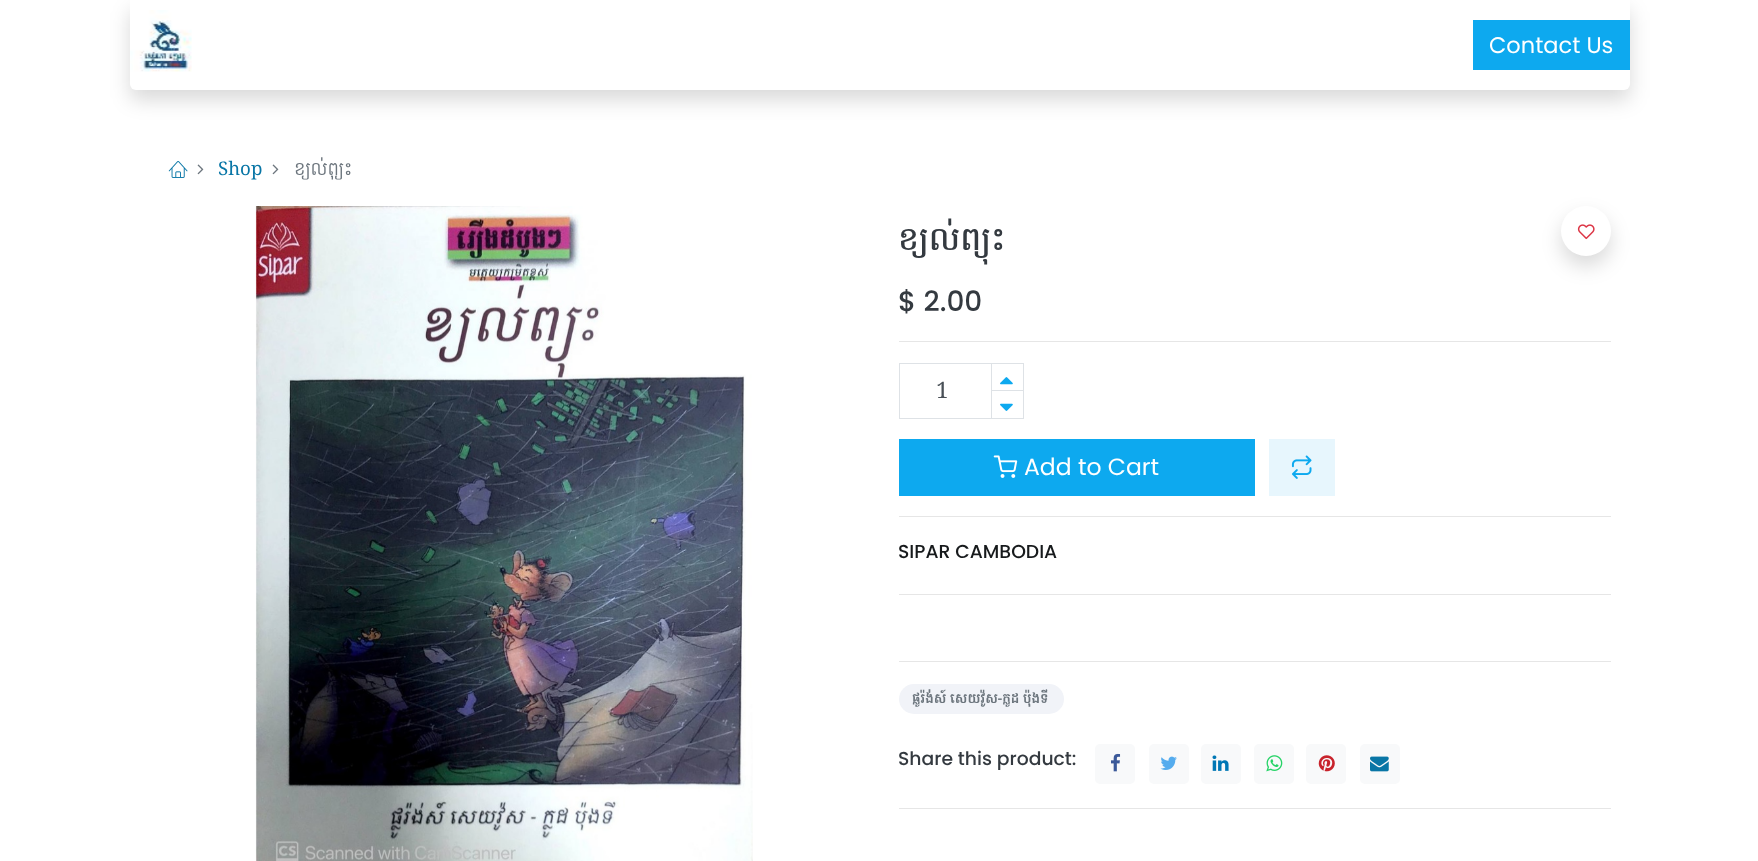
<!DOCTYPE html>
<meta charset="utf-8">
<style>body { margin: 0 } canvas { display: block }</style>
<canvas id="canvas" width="1758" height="861"></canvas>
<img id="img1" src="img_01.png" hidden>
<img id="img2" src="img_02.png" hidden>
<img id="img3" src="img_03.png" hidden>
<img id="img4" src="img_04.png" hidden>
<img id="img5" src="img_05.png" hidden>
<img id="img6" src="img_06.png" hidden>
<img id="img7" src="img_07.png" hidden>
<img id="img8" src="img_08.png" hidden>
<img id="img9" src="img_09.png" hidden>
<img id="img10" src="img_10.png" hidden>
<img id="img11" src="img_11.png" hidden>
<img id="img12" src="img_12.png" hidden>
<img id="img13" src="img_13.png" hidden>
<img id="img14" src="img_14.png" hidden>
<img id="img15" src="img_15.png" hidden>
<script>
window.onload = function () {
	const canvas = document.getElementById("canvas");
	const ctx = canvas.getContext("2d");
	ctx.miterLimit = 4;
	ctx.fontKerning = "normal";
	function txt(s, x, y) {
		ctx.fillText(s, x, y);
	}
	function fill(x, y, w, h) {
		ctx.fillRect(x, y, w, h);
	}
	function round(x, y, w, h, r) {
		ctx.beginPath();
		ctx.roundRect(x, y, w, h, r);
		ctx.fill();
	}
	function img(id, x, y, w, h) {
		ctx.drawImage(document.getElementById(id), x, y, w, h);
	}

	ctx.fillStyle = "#FFFFFF";
	fill(0, 0, 1758, 861);
	ctx.fillStyle = "rgba(0, 0, 0, 0.15)";
	ctx.filter = "blur(10px)";
	ctx.beginPath();
	ctx.roundRect(130, 10, 1500, 90, 6);
	ctx.fill();
	ctx.filter = "none";
	ctx.fillStyle = "#FFFFFF";
	ctx.beginPath();
	ctx.roundRect(130, 0, 1500, 90, [0, 0, 6, 6]);
	ctx.fill();
	img("img1", 130, 10, 62, 62);
	ctx.fillStyle = "#0DA9EF";
	fill(1473, 20, 157, 50);
	img("img2", 168, 161, 20, 17);
	img("img3", 197, 164, 7, 11);
	img("img3", 272, 164, 7, 11);
	img("img4", 255, 206, 498, 655);
	ctx.fillStyle = "rgba(0, 0, 0, 0.15)";
	ctx.filter = "blur(10px)";
	ctx.beginPath();
	ctx.roundRect(1561, 216, 50, 50, 25);
	ctx.fill();
	ctx.filter = "none";
	ctx.fillStyle = "#FFFFFF";
	ctx.beginPath();
	ctx.arc(1586, 231, 25, 0, Math.PI * 2);
	ctx.fill();
	img("img5", 1577, 224, 18, 16);
	ctx.fillStyle = "#E7F6FD";
	fill(1269, 439, 66, 57);
	img("img6", 1291, 455, 21, 24);
	ctx.fillStyle = "#E6E6E6";
	fill(899, 341, 712, 1);
	ctx.strokeStyle = "#DEE2E6";
	ctx.strokeRect(899.5, 363.5, 124, 55);
	ctx.fillStyle = "#DEE2E6";
	fill(991, 390, 1, 28);
	fill(991, 390, 32, 1);
	fill(991, 364, 1, 27);
	img("img7", 1000, 377, 13, 8);
	img("img8", 1000, 403, 13, 8);
	ctx.fillStyle = "#0DA9EF";
	fill(899, 439, 356, 57);
	img("img9", 993, 455, 25, 23);
	ctx.fillStyle = "#E6E6E6";
	fill(899, 516, 712, 1);
	fill(899, 594, 712, 1);
	fill(899, 661, 712, 1);
	ctx.fillStyle = "#F1F3F8";
	round(899, 684, 165, 30, 15);
	ctx.fillStyle = "#F8F9FA";
	round(1095, 744, 40, 40, 5);
	img("img10", 1111, 753, 10, 19);
	round(1149, 744, 40, 40, 5);
	img("img11", 1160, 756, 17, 14);
	round(1201, 744, 40, 40, 5);
	img("img12", 1212, 755, 17, 16);
	round(1254, 744, 40, 40, 5);
	img("img13", 1266, 755, 17, 17);
	round(1306, 744, 40, 40, 5);
	img("img14", 1318, 755, 17, 17);
	round(1360, 744, 40, 40, 5);
	img("img15", 1370, 756, 19, 16);
	ctx.fillStyle = "#E6E6E6";
	fill(899, 808, 712, 1);
	ctx.font = "22.5px Poppins";
	ctx.fillStyle = "#FFFFFF";
	txt("Contact Us", 1489, 53);
	ctx.font = "18.75px Koh Santepheap";
	ctx.fillStyle = "#0976A6";
	txt("Shop", 218, 175);
	ctx.fillStyle = "#6C757D";
	txt("ខ្យល់ព្យុះ", 294, 175);
	ctx.font = "500 33px Hanuman";
	ctx.fillStyle = "#343A40";
	txt("ខ្យល់ព្យុះ", 898, 250);
	ctx.font = "500 28px Poppins";
	txt("$ 2.00", 898, 311);
	ctx.font = "22.5px Koh Santepheap";
	ctx.fillStyle = "#495057";
	txt("1", 936, 398);
	ctx.font = "23.5px Poppins";
	ctx.fillStyle = "#FFFFFF";
	txt("Add to Cart", 1024, 475);
	ctx.font = "500 18.75px Poppins";
	ctx.fillStyle = "#171A1C";
	txt("SIPAR CAMBODIA", 898, 558);
	ctx.font = "bold 14px Koh Santepheap";
	ctx.fillStyle = "#6C757D";
	txt("ផ្លូរ៉ង់ស៍ សេយវ៉ូស-ក្លូដ ប៉ុងទី", 912, 703);
	ctx.font = "500 18.75px Poppins";
	ctx.fillStyle = "#343A40";
	txt("Share this product:", 898, 765);
};
</script>
